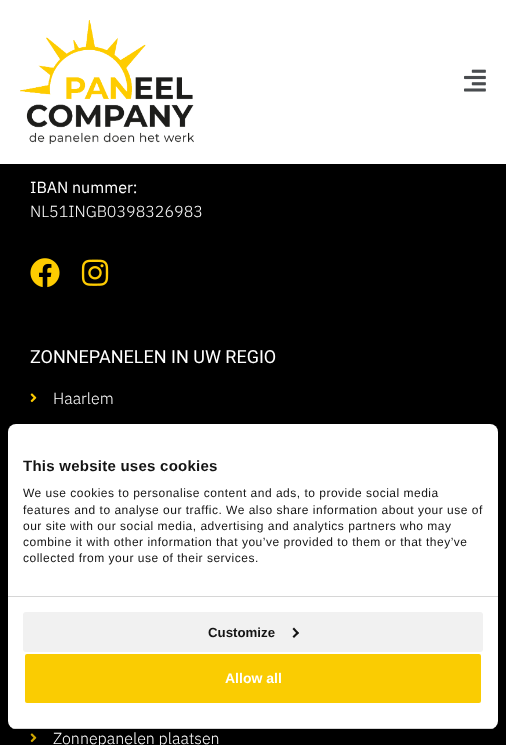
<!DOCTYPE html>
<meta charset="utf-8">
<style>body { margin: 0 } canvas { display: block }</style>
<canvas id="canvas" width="506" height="745"></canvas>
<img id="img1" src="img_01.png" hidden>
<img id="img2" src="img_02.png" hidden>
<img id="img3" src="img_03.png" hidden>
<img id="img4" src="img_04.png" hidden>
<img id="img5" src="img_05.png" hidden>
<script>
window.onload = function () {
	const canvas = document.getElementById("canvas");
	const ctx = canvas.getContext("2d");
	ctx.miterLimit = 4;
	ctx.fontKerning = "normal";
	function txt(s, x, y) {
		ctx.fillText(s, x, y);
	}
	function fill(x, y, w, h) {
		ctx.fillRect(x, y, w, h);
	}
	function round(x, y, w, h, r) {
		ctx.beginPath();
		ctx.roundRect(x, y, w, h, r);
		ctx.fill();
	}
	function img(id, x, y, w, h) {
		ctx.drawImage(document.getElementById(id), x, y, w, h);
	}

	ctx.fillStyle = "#000000";
	fill(0, 0, 506, 745);
	ctx.fillStyle = "#FFFFFF";
	fill(0, 0, 506, 164);
	img("img1", 20, 20, 174, 124);
	img("img2", 464, 69, 22, 23);
	img("img3", 30, 258, 30, 30);
	img("img4", 81, 259, 28, 27);
	img("img5", 30, 393, 7, 10);
	img("img5", 30, 733, 7, 10);
	ctx.fillStyle = "rgba(0, 0, 0, 0.3)";
	ctx.filter = "blur(34px)";
	ctx.beginPath();
	ctx.roundRect(8, 456, 490, 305, 8);
	ctx.fill();
	ctx.filter = "none";
	ctx.fillStyle = "#FFFFFF";
	round(8, 424, 490, 305, 8);
	ctx.fillStyle = "#D6D6D6";
	fill(8, 596, 490, 1);
	ctx.save();
	ctx.beginPath();
	ctx.roundRect(8, 424, 490, 305, 8);
	ctx.clip();
	fill(8, 728, 490, 1);
	ctx.restore();
	ctx.fillStyle = "#F1F1F1";
	round(23, 612, 460, 40, 3);
	ctx.fillStyle = "#141414";
	ctx.beginPath();
	ctx.moveTo(294, 627.5);
	ctx.lineTo(299, 633);
	ctx.lineTo(297.5, 634.5);
	ctx.lineTo(292.5, 629);
	ctx.closePath();
	ctx.fill();
	ctx.beginPath();
	ctx.moveTo(297.5, 631.5);
	ctx.lineTo(299, 633);
	ctx.lineTo(294, 638);
	ctx.lineTo(292.5, 636.5);
	ctx.closePath();
	ctx.fill();
	ctx.fillStyle = "#FACC02";
	ctx.beginPath();
	ctx.roundRect(24, 653, 458, 51, 3);
	ctx.fill();
	ctx.strokeStyle = "#FFFFFF";
	ctx.lineWidth = 2;
	ctx.stroke();
	ctx.font = "16px IBM Plex Sans";
	ctx.fillStyle = "#FFFFFF";
	txt("IBAN nummer:", 30, 193);
	ctx.font = "300 16px IBM Plex Sans";
	txt("NL51INGB0398326983", 30, 217);
	ctx.font = "18px Roboto";
	txt("ZONNEPANELEN IN UW REGIO", 30, 363);
	ctx.font = "300 16px IBM Plex Sans";
	txt("Haarlem", 53, 404);
	txt("Zonnepanelen plaatsen", 53, 744);
	ctx.letterSpacing = "0.25px";
	ctx.font = "bold 15px Liberation Sans";
	ctx.fillStyle = "#141414";
	txt("This website uses cookies", 23, 471);
	ctx.letterSpacing = "0.5px";
	ctx.font = "12px Liberation Sans";
	txt("We use cookies to personalise content and ads, to provide social media", 23, 497);
	txt("features and to analyse our traffic. We also share information about your use of", 23, 514);
	txt("our site with our social media, advertising and analytics partners who may", 23, 530);
	txt("combine it with other information that you’ve provided to them or that they’ve", 23, 546);
	txt("collected from your use of their services.", 23, 562);
	ctx.letterSpacing = "0px";
	ctx.font = "bold 13.25px Liberation Sans";
	txt("Customize", 208, 637);
	ctx.font = "bold 14px Liberation Sans";
	ctx.fillStyle = "#FFFFFF";
	txt("Allow all", 225, 683);
};
</script>
